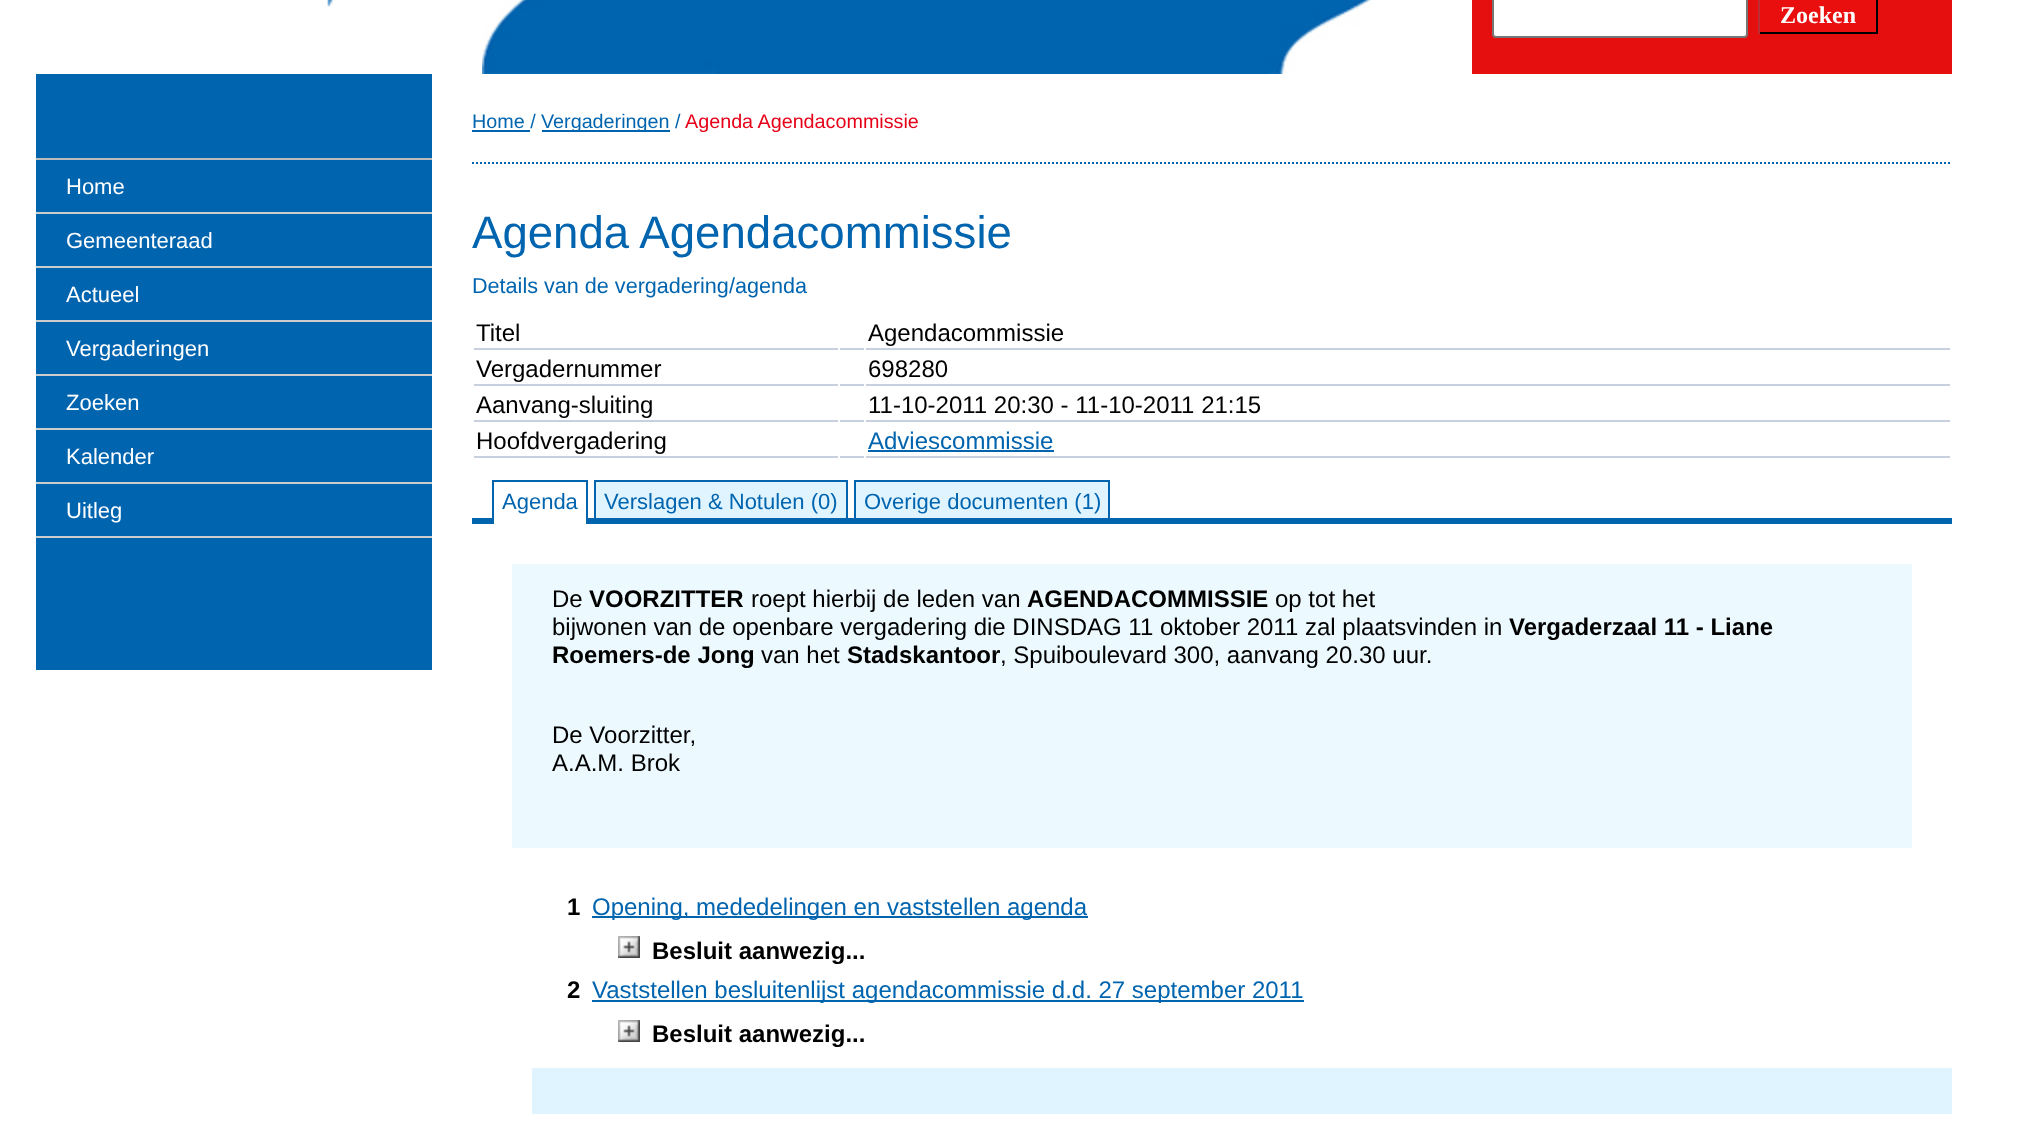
<!DOCTYPE html>
<meta charset="utf-8">
<style>body { margin: 0 } canvas { display: block }</style>
<canvas id="canvas" width="2031" height="1129"></canvas>
<img id="img1" src="img_01.png" hidden>
<img id="img2" src="img_02.png" hidden>
<img id="img3" src="img_03.png" hidden>
<script>
window.onload = function () {
	const canvas = document.getElementById("canvas");
	const ctx = canvas.getContext("2d");
	ctx.miterLimit = 4;
	ctx.fontKerning = "normal";
	function txt(s, x, y) {
		ctx.fillText(s, x, y);
	}
	function fill(x, y, w, h) {
		ctx.fillRect(x, y, w, h);
	}
	function img(id, x, y, w, h) {
		ctx.drawImage(document.getElementById(id), x, y, w, h);
	}

	ctx.fillStyle = "#FFFFFF";
	fill(0, 0, 2031, 1129);
	img("img1", 327, 0, 6, 7);
	img("img2", 482, 0, 890, 74);
	ctx.fillStyle = "#E60F0F";
	fill(1472, 0, 480, 74);
	ctx.fillStyle = "#FFFFFF";
	ctx.beginPath();
	ctx.roundRect(1493, -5, 254, 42, 3);
	ctx.fill();
	ctx.strokeStyle = "#767676";
	ctx.lineWidth = 2;
	ctx.stroke();
	ctx.fillStyle = "#E90F0E";
	fill(1760, 0, 116, 32);
	ctx.fillStyle = "#000000";
	fill(1876, 0, 2, 34);
	fill(1758, 32, 120, 2);
	ctx.fillStyle = "#BD2B33";
	fill(1758, 0, 2, 34);
	ctx.beginPath();
	ctx.moveTo(472, 163);
	ctx.lineTo(1952, 163);
	ctx.strokeStyle = "#0064AF";
	ctx.setLineDash([2, 2]);
	ctx.stroke();
	ctx.fillStyle = "#0064AF";
	fill(472, 130, 58, 2);
	fill(542, 130, 128, 2);
	fill(36, 74, 396, 596);
	ctx.fillStyle = "#BBBBBB";
	fill(36, 158, 396, 2);
	ctx.fillStyle = "#CCCCCC";
	fill(36, 212, 396, 2);
	fill(36, 266, 396, 2);
	fill(36, 320, 396, 2);
	fill(36, 374, 396, 2);
	fill(36, 428, 396, 2);
	fill(36, 482, 396, 2);
	fill(36, 536, 396, 2);
	ctx.fillStyle = "#C7D0DE";
	fill(474, 348, 364, 2);
	fill(866, 348, 1084, 2);
	fill(840, 348, 24, 2);
	fill(474, 384, 364, 2);
	fill(866, 384, 1084, 2);
	fill(840, 384, 24, 2);
	fill(474, 420, 364, 2);
	fill(866, 420, 1084, 2);
	fill(840, 420, 24, 2);
	fill(474, 456, 364, 2);
	fill(866, 456, 1084, 2);
	ctx.fillStyle = "#0064AF";
	fill(868, 450, 186, 2);
	ctx.fillStyle = "#C7D0DE";
	fill(840, 456, 24, 2);
	ctx.fillStyle = "#0064AF";
	fill(472, 518, 1480, 6);
	ctx.fillStyle = "#FFFFFF";
	fill(494, 518, 92, 6);
	ctx.fillStyle = "#0064AF";
	fill(492, 480, 96, 2);
	fill(586, 480, 2, 44);
	fill(492, 480, 2, 44);
	ctx.fillStyle = "#DFF4FF";
	fill(596, 482, 250, 36);
	ctx.fillStyle = "#0064AF";
	fill(594, 480, 254, 2);
	fill(846, 480, 2, 38);
	fill(594, 480, 2, 38);
	ctx.fillStyle = "#DFF4FF";
	fill(856, 482, 252, 36);
	ctx.fillStyle = "#0064AF";
	fill(854, 480, 256, 2);
	fill(1108, 480, 2, 38);
	fill(854, 480, 2, 38);
	ctx.fillStyle = "#ECF9FF";
	fill(512, 564, 1400, 284);
	ctx.fillStyle = "#0064AF";
	fill(592, 916, 496, 2);
	img("img3", 618, 936, 22, 22);
	fill(592, 1000, 712, 2);
	img("img3", 618, 1020, 22, 22);
	ctx.fillStyle = "#DFF4FF";
	fill(532, 1068, 1420, 46);
	ctx.font = "bold 24px Liberation Serif";
	ctx.fillStyle = "#FFFFFF";
	txt("Zoeken", 1780, 23);
	ctx.font = "19.75px Liberation Sans";
	ctx.fillStyle = "#0064AF";
	txt("Home /", 472, 128);
	txt("Vergaderingen", 541, 128);
	txt("/", 675, 128);
	ctx.fillStyle = "#E60018";
	txt("Agenda Agendacommissie", 685, 128);
	ctx.font = "22px Liberation Sans";
	ctx.fillStyle = "#FFFFFF";
	txt("Home", 66, 194);
	txt("Gemeenteraad", 66, 248);
	txt("Actueel", 66, 302);
	txt("Vergaderingen", 66, 356);
	txt("Zoeken", 66, 410);
	txt("Kalender", 66, 464);
	txt("Uitleg", 66, 518);
	ctx.font = "45.6px Liberation Sans";
	ctx.fillStyle = "#0064AF";
	txt("Agenda Agendacommissie", 472, 248);
	ctx.font = "21.6px Liberation Sans";
	txt("Details van de vergadering/agenda", 472, 293);
	ctx.font = "24px Liberation Sans";
	ctx.fillStyle = "#000000";
	txt("Titel", 476, 341);
	txt("Agendacommissie", 868, 341);
	txt("Vergadernummer", 476, 377);
	txt("698280", 868, 377);
	txt("Aanvang-sluiting", 476, 413);
	txt("11-10-2011 20:30 - 11-10-2011 21:15", 868, 413);
	txt("Hoofdvergadering", 476, 449);
	ctx.fillStyle = "#0064AF";
	txt("Adviescommissie", 868, 449);
	ctx.font = "22px Liberation Sans";
	txt("Agenda", 502, 509);
	txt("Verslagen & Notulen (0)", 604, 509);
	txt("Overige documenten (1)", 864, 509);
	ctx.font = "24px Liberation Sans";
	ctx.fillStyle = "#000000";
	txt("De", 552, 607);
	ctx.font = "bold 24px Liberation Sans";
	txt("VOORZITTER", 589, 607);
	ctx.font = "24px Liberation Sans";
	txt("roept hierbij de leden van", 751, 607);
	ctx.font = "bold 24px Liberation Sans";
	txt("AGENDACOMMISSIE", 1027, 607);
	ctx.font = "24px Liberation Sans";
	txt("op tot het", 1275, 607);
	txt("bijwonen van de openbare vergadering die DINSDAG 11 oktober 2011 zal plaatsvinden in", 552, 635);
	ctx.font = "bold 24px Liberation Sans";
	txt("Vergaderzaal 11 - Liane", 1509, 635);
	txt("Roemers-de Jong", 552, 663);
	ctx.font = "24px Liberation Sans";
	txt("van het", 761, 663);
	ctx.font = "bold 24px Liberation Sans";
	txt("Stadskantoor", 847, 663);
	ctx.font = "24px Liberation Sans";
	txt(", Spuiboulevard 300, aanvang 20.30 uur.", 1000, 663);
	txt("De Voorzitter,", 552, 743);
	txt("A.A.M. Brok", 552, 771);
	ctx.font = "bold 24px Liberation Sans";
	txt("1", 567, 915);
	ctx.font = "24px Liberation Sans";
	ctx.fillStyle = "#0064AF";
	txt("Opening, mededelingen en vaststellen agenda", 592, 915);
	ctx.font = "bold 24px Liberation Sans";
	ctx.fillStyle = "#000000";
	txt("Besluit aanwezig...", 652, 959);
	txt("2", 567, 998);
	ctx.font = "24px Liberation Sans";
	ctx.fillStyle = "#0064AF";
	txt("Vaststellen besluitenlijst agendacommissie d.d. 27 september 2011", 592, 998);
	ctx.font = "bold 24px Liberation Sans";
	ctx.fillStyle = "#000000";
	txt("Besluit aanwezig...", 652, 1042);
};
</script>
